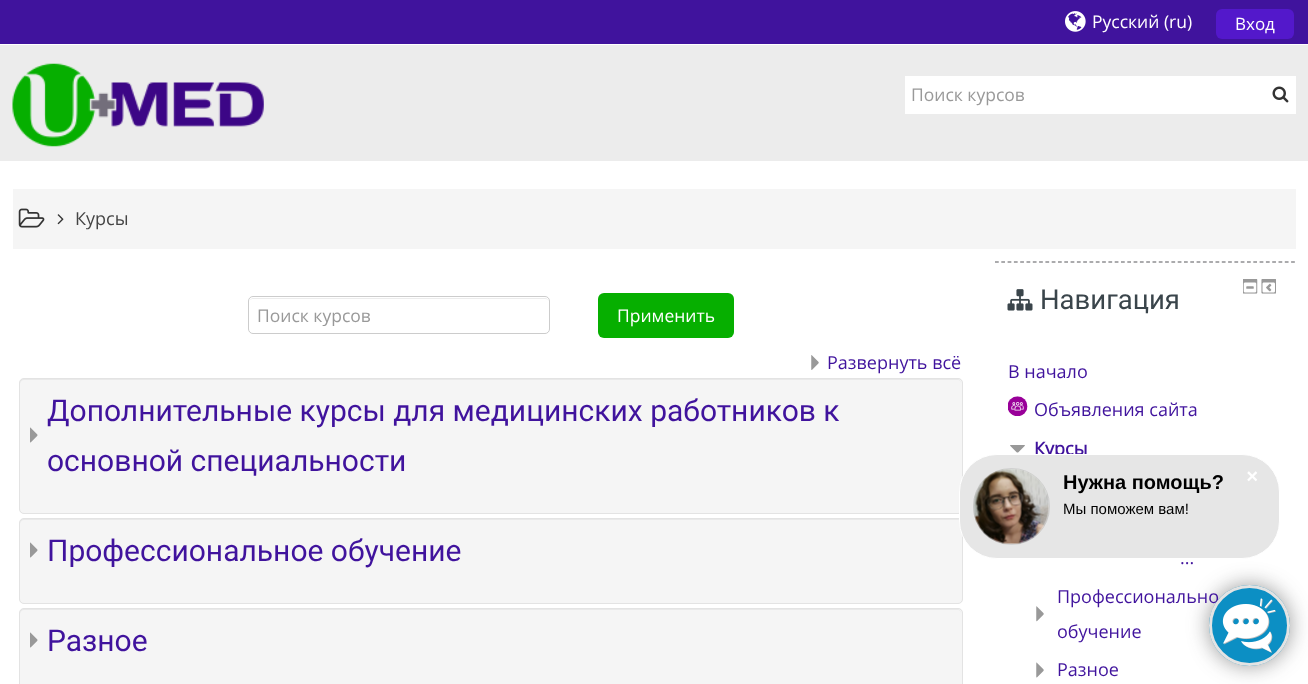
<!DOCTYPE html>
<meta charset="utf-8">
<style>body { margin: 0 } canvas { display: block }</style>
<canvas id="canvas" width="1308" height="684"></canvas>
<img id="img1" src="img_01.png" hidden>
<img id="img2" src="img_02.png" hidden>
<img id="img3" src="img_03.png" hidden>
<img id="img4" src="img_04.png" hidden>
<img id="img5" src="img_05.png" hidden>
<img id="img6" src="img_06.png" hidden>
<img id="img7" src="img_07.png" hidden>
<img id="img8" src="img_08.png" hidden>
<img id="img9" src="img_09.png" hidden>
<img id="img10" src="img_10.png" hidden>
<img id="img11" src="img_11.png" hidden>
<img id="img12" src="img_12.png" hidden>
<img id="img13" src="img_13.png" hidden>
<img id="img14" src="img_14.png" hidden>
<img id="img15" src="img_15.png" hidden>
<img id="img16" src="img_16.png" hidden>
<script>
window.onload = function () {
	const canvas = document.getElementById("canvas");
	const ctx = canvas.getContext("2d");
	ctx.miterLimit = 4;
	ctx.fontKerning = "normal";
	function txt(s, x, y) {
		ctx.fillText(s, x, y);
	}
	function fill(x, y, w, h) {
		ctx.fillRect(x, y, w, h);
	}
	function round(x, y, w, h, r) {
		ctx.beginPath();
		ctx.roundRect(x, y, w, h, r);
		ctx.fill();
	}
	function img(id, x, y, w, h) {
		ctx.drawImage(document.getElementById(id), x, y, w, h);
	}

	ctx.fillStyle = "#FFFFFF";
	fill(0, 0, 1308, 684);
	ctx.fillStyle = "#ECECEC";
	fill(0, 45, 1308, 116);
	ctx.fillStyle = "#40139D";
	fill(0, 0, 1308, 44);
	img("img1", 1065, 11, 21, 21);
	ctx.fillStyle = "#5318CB";
	round(1216, 9, 78, 30, 6);
	img("img2", 12, 63, 252, 84);
	ctx.fillStyle = "#FFFFFF";
	fill(905, 76, 391, 38);
	img("img3", 1272, 86, 17, 17);
	ctx.fillStyle = "#F5F5F5";
	fill(13, 189, 1283, 60);
	img("img4", 18, 208, 27, 20);
	img("img5", 57, 214, 7, 11);
	ctx.fillStyle = "#ECECEC";
	ctx.beginPath();
	ctx.moveTo(252, 299);
	ctx.lineTo(545, 299);
	ctx.bezierCurveTo(547, 299, 549, 300, 549, 302);
	ctx.bezierCurveTo(549, 300, 547, 298, 545, 298);
	ctx.lineTo(253, 298);
	ctx.bezierCurveTo(252, 298, 250, 299, 250, 300);
	ctx.closePath();
	ctx.fill();
	ctx.beginPath();
	ctx.roundRect(248.5, 296.5, 301, 37, 4.5);
	ctx.strokeStyle = "#CCCCCC";
	ctx.stroke();
	ctx.fillStyle = "#06AF00";
	round(598, 293, 136, 45, 6);
	img("img6", 811, 355, 8, 15);
	ctx.fillStyle = "#F5F5F5";
	round(19, 378, 944, 136, 5);
	ctx.fillStyle = "#E9E9E9";
	ctx.beginPath();
	ctx.moveTo(24, 380);
	ctx.lineTo(958, 380);
	ctx.bezierCurveTo(960, 380, 961, 382, 961, 384);
	ctx.bezierCurveTo(961, 381, 960, 379, 957, 379);
	ctx.lineTo(24, 379);
	ctx.bezierCurveTo(21, 379, 20, 381, 20, 384);
	ctx.bezierCurveTo(20, 382, 22, 380, 24, 380);
	ctx.closePath();
	ctx.fill();
	ctx.beginPath();
	ctx.roundRect(19.5, 378.5, 943, 135, 4.5);
	ctx.strokeStyle = "#E3E3E3";
	ctx.stroke();
	img("img7", 30, 427, 8, 16);
	ctx.fillStyle = "#F5F5F5";
	round(19, 518, 944, 86, 5);
	ctx.fillStyle = "#E9E9E9";
	ctx.beginPath();
	ctx.moveTo(24, 520);
	ctx.lineTo(958, 520);
	ctx.bezierCurveTo(960, 520, 961, 522, 961, 524);
	ctx.bezierCurveTo(961, 521, 960, 519, 957, 519);
	ctx.lineTo(24, 519);
	ctx.bezierCurveTo(21, 519, 20, 521, 20, 524);
	ctx.bezierCurveTo(20, 522, 22, 520, 24, 520);
	ctx.closePath();
	ctx.fill();
	ctx.beginPath();
	ctx.roundRect(19.5, 518.5, 943, 85, 4.5);
	ctx.stroke();
	img("img7", 30, 542, 8, 16);
	ctx.fillStyle = "#F5F5F5";
	round(19, 608, 944, 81, 5);
	ctx.fillStyle = "#E9E9E9";
	ctx.beginPath();
	ctx.moveTo(24, 610);
	ctx.lineTo(958, 610);
	ctx.bezierCurveTo(960, 610, 961, 612, 961, 614);
	ctx.bezierCurveTo(961, 611, 960, 609, 957, 609);
	ctx.lineTo(24, 609);
	ctx.bezierCurveTo(21, 609, 20, 611, 20, 614);
	ctx.bezierCurveTo(20, 612, 22, 610, 24, 610);
	ctx.closePath();
	ctx.fill();
	ctx.beginPath();
	ctx.roundRect(19.5, 608.5, 943, 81, 4.5);
	ctx.stroke();
	img("img7", 30, 632, 8, 16);
	ctx.beginPath();
	ctx.moveTo(995, 262);
	ctx.lineTo(1295, 262);
	ctx.strokeStyle = "#59585D";
	ctx.lineWidth = 1.2;
	ctx.setLineDash([3.75, 2.55]);
	ctx.stroke();
	img("img8", 1243, 279, 15, 15);
	img("img9", 1261, 279, 15, 15);
	img("img10", 1007, 289, 26, 22);
	img("img11", 1008, 396, 20, 20);
	img("img12", 1010, 445, 15, 8);
	img("img13", 1036, 606, 8, 16);
	img("img14", 1036, 662, 8, 16);
	ctx.fillStyle = "rgba(50, 50, 50, 0.5)";
	ctx.filter = "blur(10.5px)";
	ctx.beginPath();
	ctx.roundRect(1209, 585, 81, 81, 40.5);
	ctx.fill();
	ctx.filter = "none";
	ctx.font = "17.5px Open Sans";
	ctx.fillStyle = "#FFFFFF";
	txt("Русский (ru)", 1092, 28);
	ctx.font = "17px Open Sans";
	txt("Вход", 1235, 30);
	ctx.font = "17.5px Open Sans";
	ctx.fillStyle = "#999999";
	txt("Поиск курсов", 911, 101);
	ctx.font = "18px Open Sans";
	ctx.fillStyle = "#444444";
	txt("Курсы", 75, 225);
	ctx.save();
	ctx.beginPath();
	ctx.rect(256, 303, 285, 23);
	ctx.clip();
	ctx.font = "17.5px Open Sans";
	ctx.fillStyle = "#999999";
	txt("Поиск курсов", 257, 322);
	ctx.restore();
	ctx.font = "17.5px Open Sans";
	ctx.fillStyle = "#FFFFFF";
	txt("Применить", 617, 322);
	ctx.font = "18px Open Sans";
	ctx.fillStyle = "#40139D";
	txt("Развернуть всё", 827, 369);
	ctx.font = "30px Roboto";
	txt("Дополнительные курсы для медицинских работников к", 47, 421);
	txt("основной специальности", 47, 471);
	txt("Профессиональное обучение", 47, 561);
	txt("Разное", 47, 651);
	ctx.font = "27.5px Roboto";
	ctx.fillStyle = "#3A454B";
	txt("Навигация", 1040, 309);
	ctx.font = "18px Open Sans";
	ctx.fillStyle = "#40139D";
	txt("В начало", 1008, 378);
	txt("Объявления сайта", 1034, 416);
	ctx.font = "bold 18px Open Sans";
	txt("Курсы", 1034, 455);
	ctx.font = "18px Open Sans";
	txt("...", 1180, 564);
	txt("Профессионально", 1057, 603);
	txt("обучение", 1057, 638);
	txt("Разное", 1057, 676);
	ctx.fillStyle = "#E6E6E6";
	ctx.beginPath();
	ctx.roundRect(959.5, 454.5, 320, 104, 37.5);
	ctx.fill();
	ctx.strokeStyle = "#FFFFFF";
	ctx.lineWidth = 1;
	ctx.setLineDash([]);
	ctx.stroke();
	ctx.beginPath();
	ctx.roundRect(973.5, 468.5, 76, 76, 37.5);
	ctx.strokeStyle = "#D0D0D0";
	ctx.stroke();
	img("img15", 973, 469, 76, 75);
	ctx.font = "bold 20px Liberation Sans";
	ctx.fillStyle = "#000000";
	txt("Нужна помощь?", 1063, 489);
	ctx.font = "italic bold 20px Liberation Sans";
	ctx.fillStyle = "#FFFFFF";
	txt("×", 1246, 483);
	ctx.font = "15px Liberation Sans";
	ctx.fillStyle = "#000000";
	txt("Мы поможем вам!", 1063, 514);
	ctx.fillStyle = "#0C8FC4";
	ctx.beginPath();
	ctx.arc(1249.5, 625.5, 40.5, 0, Math.PI * 2);
	ctx.fill();
	img("img16", 1222, 598, 54, 55);
	ctx.beginPath();
	ctx.arc(1249.5, 625.5, 39, 0, Math.PI * 2);
	ctx.strokeStyle = "#E3E3E3";
	ctx.lineWidth = 3;
	ctx.stroke();
};
</script>
